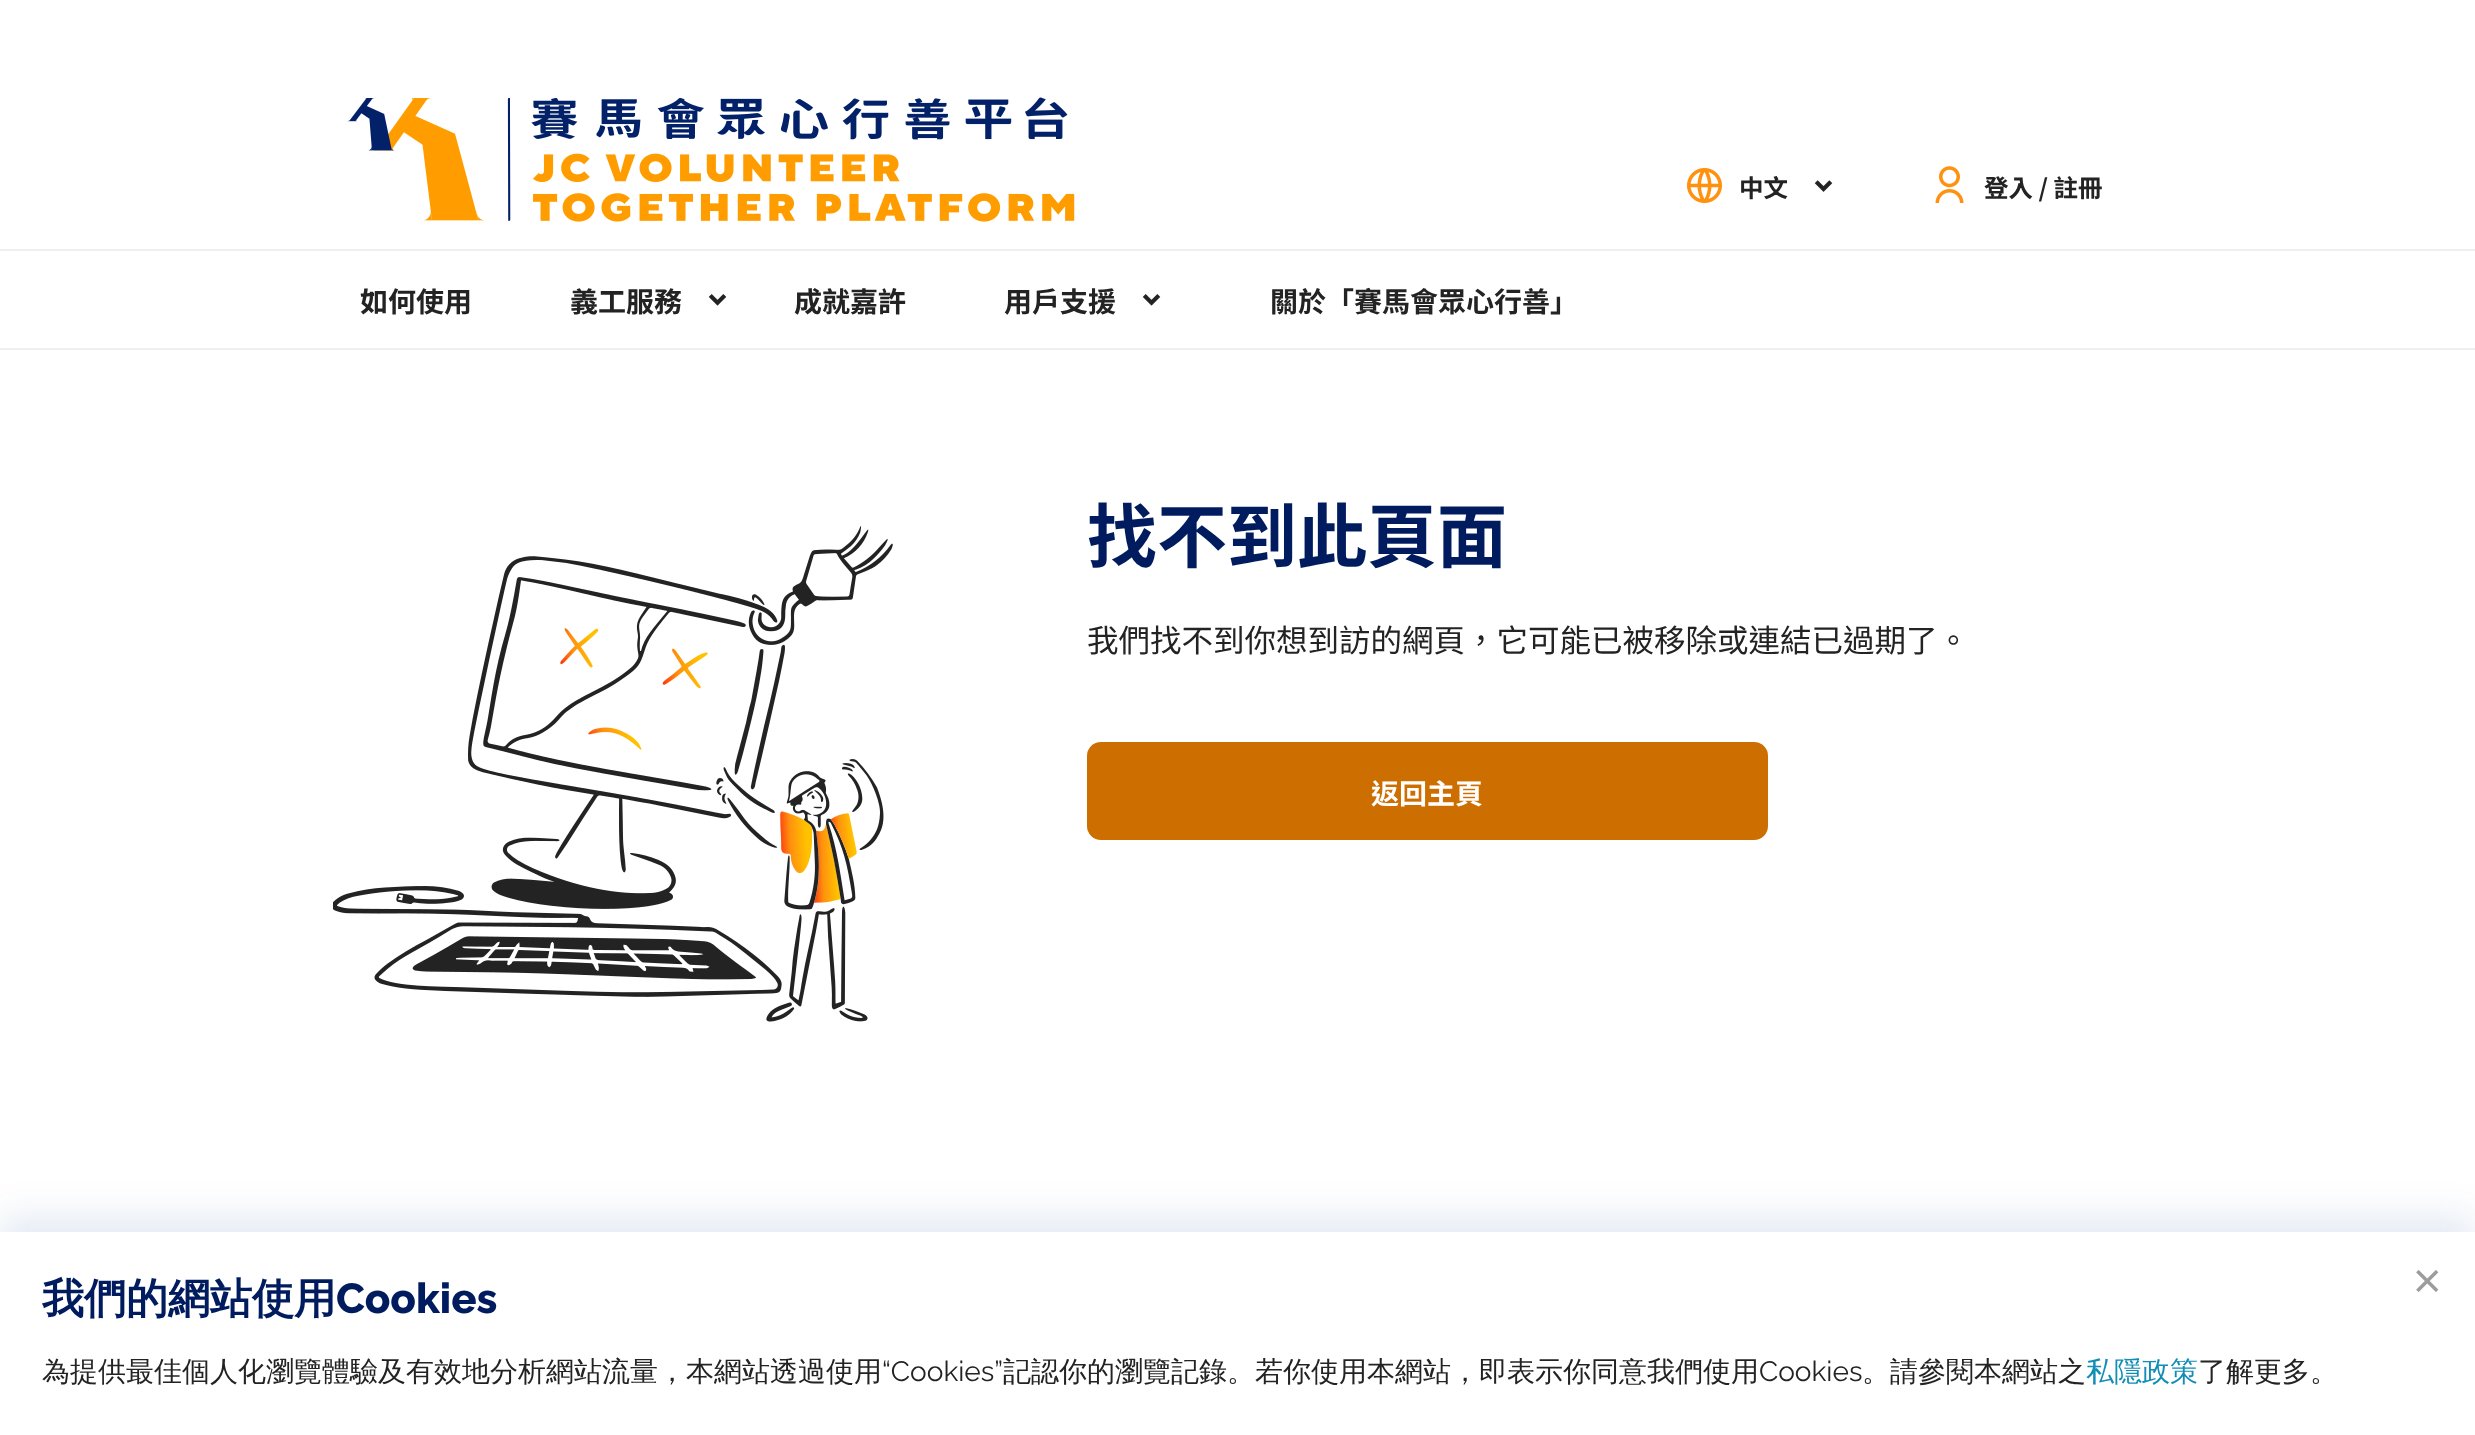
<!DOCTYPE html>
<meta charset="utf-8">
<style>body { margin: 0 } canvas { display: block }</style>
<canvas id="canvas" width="2475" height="1435"></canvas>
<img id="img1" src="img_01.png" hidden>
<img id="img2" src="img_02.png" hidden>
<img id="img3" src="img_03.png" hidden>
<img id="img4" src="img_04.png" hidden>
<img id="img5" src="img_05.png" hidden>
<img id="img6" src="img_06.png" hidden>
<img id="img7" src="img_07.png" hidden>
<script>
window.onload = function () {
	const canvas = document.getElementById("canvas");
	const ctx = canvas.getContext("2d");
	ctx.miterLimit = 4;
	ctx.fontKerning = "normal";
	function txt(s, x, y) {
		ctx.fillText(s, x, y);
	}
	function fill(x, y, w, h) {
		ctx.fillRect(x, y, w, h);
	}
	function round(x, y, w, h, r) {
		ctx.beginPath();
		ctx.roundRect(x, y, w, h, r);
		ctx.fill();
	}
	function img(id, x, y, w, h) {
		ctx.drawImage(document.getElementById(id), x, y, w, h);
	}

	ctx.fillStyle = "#FFFFFF";
	fill(0, 0, 2475, 1435);
	img("img1", 347, 97, 728, 125);
	img("img2", 1687, 168, 35, 35);
	img("img3", 1814, 180, 19, 12);
	img("img4", 1935, 166, 29, 37);
	ctx.fillStyle = "#EFEFEF";
	fill(0, 249, 2475, 2);
	img("img5", 708, 294, 19, 12);
	img("img5", 1142, 294, 19, 12);
	fill(0, 348, 2475, 2);
	img("img6", 333, 526, 560, 496);
	ctx.fillStyle = "#CC6F00";
	round(1087, 742, 681, 98, 14);
	ctx.fillStyle = "rgba(3, 63, 147, 0.1)";
	ctx.filter = "blur(17.5px)";
	ctx.beginPath();
	ctx.rect(0, 1215, 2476, 203);
	ctx.fill();
	ctx.filter = "none";
	ctx.fillStyle = "#FFFFFF";
	fill(0, 1232, 2475, 203);
	img("img7", 2416, 1270, 23, 22);
	ctx.font = "bold 24.5px Noto Sans TC";
	ctx.fillStyle = "#232323";
	txt("中文", 1739, 197);
	txt("登入 / 註冊", 1984, 197);
	ctx.font = "bold 28px Noto Sans TC";
	txt("如何使用", 360, 312);
	txt("義工服務", 570, 312);
	txt("成就嘉許", 794, 312);
	txt("用戶支援", 1004, 312);
	txt("關於「賽馬會眾心行善」", 1270, 312);
	ctx.font = "bold 70px Noto Sans TC";
	ctx.fillStyle = "#001C5E";
	txt("找不到此頁面", 1087, 562);
	ctx.font = "31.5px Noto Sans TC";
	ctx.fillStyle = "#232323";
	txt("我們找不到你想到訪的網頁，它可能已被移除或連結已過期了。", 1087, 652);
	ctx.font = "bold 28px Noto Sans TC";
	ctx.fillStyle = "#FFFFFF";
	txt("返回主頁", 1371, 804);
	ctx.font = "bold 42px WenQuanYi Zen Hei";
	ctx.fillStyle = "#001C5E";
	txt("我們的網站使用", 42, 1313);
	ctx.font = "800 42px Raleway";
	txt("Cookies", 336, 1313);
	ctx.font = "500 28px WenQuanYi Zen Hei";
	ctx.fillStyle = "#232323";
	txt("為提供最佳個人化瀏覽體驗及有效地分析網站流量，本網站透過使用", 42, 1381);
	ctx.font = "28px Raleway";
	txt("“Cookies”", 882, 1381);
	ctx.font = "500 28px WenQuanYi Zen Hei";
	txt("記認你的瀏覽記錄。若你使用本網站，即表示你同意我們使用", 1003, 1381);
	ctx.font = "28px Raleway";
	txt("Cookies", 1759, 1381);
	ctx.font = "500 28px WenQuanYi Zen Hei";
	txt("。請參閱本網站之", 1862, 1381);
	ctx.fillStyle = "#128DB5";
	txt("私隱政策", 2086, 1381);
	ctx.fillStyle = "#232323";
	txt("了解更多。", 2198, 1381);
};
</script>
